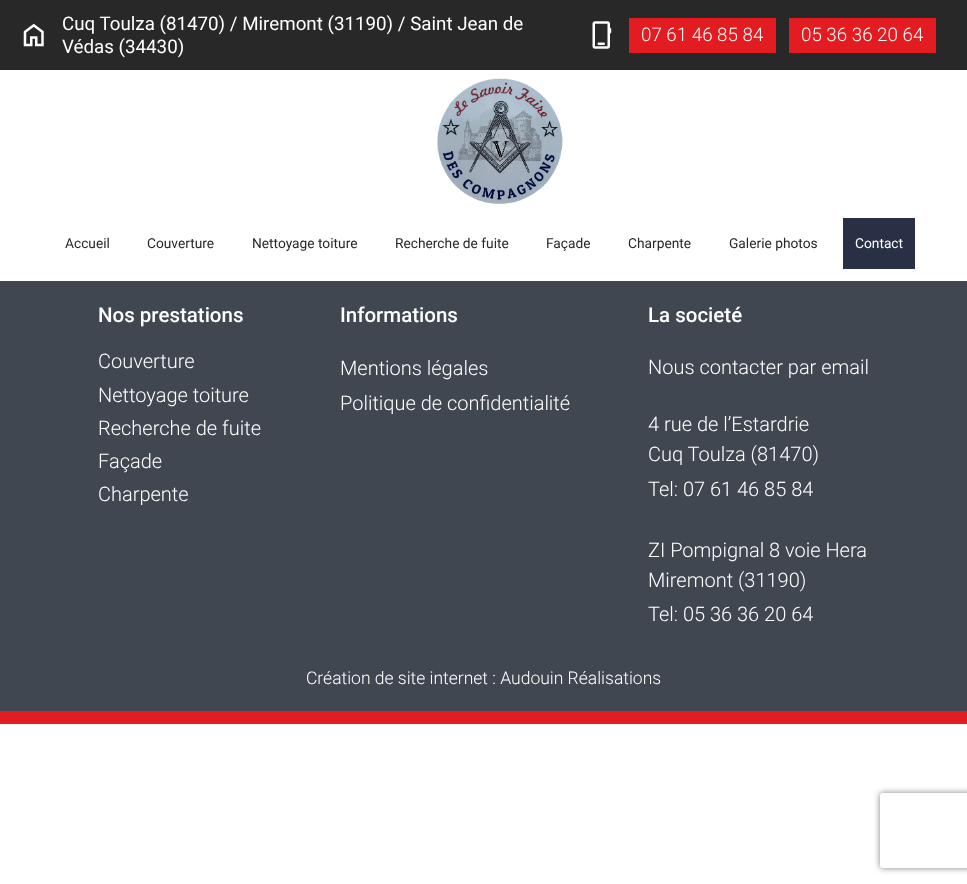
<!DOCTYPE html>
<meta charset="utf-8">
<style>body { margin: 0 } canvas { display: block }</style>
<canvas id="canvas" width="967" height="884"></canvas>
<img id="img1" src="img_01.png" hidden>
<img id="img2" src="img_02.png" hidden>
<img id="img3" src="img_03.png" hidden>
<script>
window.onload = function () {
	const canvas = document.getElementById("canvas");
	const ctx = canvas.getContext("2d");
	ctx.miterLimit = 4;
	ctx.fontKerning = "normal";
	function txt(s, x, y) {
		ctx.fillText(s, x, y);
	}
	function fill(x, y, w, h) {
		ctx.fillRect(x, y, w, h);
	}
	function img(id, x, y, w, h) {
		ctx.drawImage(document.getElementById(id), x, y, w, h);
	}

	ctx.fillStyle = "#FFFFFF";
	fill(0, 0, 967, 884);
	ctx.fillStyle = "#282828";
	fill(0, 0, 967, 70);
	img("img1", 23, 23, 21, 24);
	img("img2", 592, 21, 20, 28);
	ctx.fillStyle = "#E21C21";
	fill(629, 18, 147, 35);
	fill(789, 18, 147, 35);
	img("img3", 437, 78, 126, 126);
	ctx.fillStyle = "#292F45";
	fill(843, 218, 72, 51);
	ctx.fillStyle = "#404751";
	fill(0, 281, 967, 430);
	ctx.fillStyle = "#E21C21";
	fill(0, 711, 967, 13);
	ctx.save();
	ctx.beginPath();
	ctx.moveTo(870, 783);
	ctx.lineTo(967, 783);
	ctx.lineTo(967, 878);
	ctx.lineTo(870, 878);
	ctx.closePath();
	ctx.moveTo(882.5, 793);
	ctx.lineTo(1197.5, 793);
	ctx.bezierCurveTo(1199, 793, 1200, 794, 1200, 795.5);
	ctx.lineTo(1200, 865.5);
	ctx.bezierCurveTo(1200, 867, 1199, 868, 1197.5, 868);
	ctx.lineTo(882.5, 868);
	ctx.bezierCurveTo(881, 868, 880, 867, 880, 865.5);
	ctx.lineTo(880, 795.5);
	ctx.bezierCurveTo(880, 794, 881, 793, 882.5, 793);
	ctx.closePath();
	ctx.clip("evenodd");
	ctx.fillStyle = "#808080";
	ctx.filter = "blur(3px)";
	ctx.beginPath();
	ctx.roundRect(880, 793, 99, 75, 2.5);
	ctx.fill();
	ctx.filter = "none";
	ctx.restore();
	ctx.font = "18.75px Roboto";
	ctx.fillStyle = "#FFFFFF";
	txt("Cuq Toulza (81470) / Miremont (31190) / Saint Jean de", 62, 30);
	txt("Védas (34430)", 62, 53);
	ctx.font = "300 18.75px Roboto";
	txt("07 61 46 85 84", 641, 41);
	txt("05 36 36 20 64", 801, 41);
	ctx.font = "13.75px Roboto";
	ctx.fillStyle = "#282828";
	txt("Accueil", 65, 248);
	txt("Couverture", 147, 248);
	txt("Nettoyage toiture", 252, 248);
	txt("Recherche de fuite", 395, 248);
	txt("Façade", 546, 248);
	txt("Charpente", 628, 248);
	txt("Galerie photos", 729, 248);
	ctx.fillStyle = "#FFFFFF";
	txt("Contact", 855, 248);
	ctx.font = "500 20.5px Roboto";
	txt("Nos prestations", 98, 322);
	ctx.font = "300 20px Roboto";
	txt("Couverture", 98, 368);
	txt("Nettoyage toiture", 98, 402);
	txt("Recherche de fuite", 98, 435);
	txt("Façade", 98, 468);
	txt("Charpente", 98, 501);
	ctx.font = "500 20.5px Roboto";
	txt("Informations", 340, 322);
	ctx.font = "300 20px Roboto";
	txt("Mentions légales", 340, 375);
	txt("Politique de confidentialité", 340, 410);
	ctx.font = "500 20.5px Roboto";
	txt("La societé", 648, 322);
	ctx.font = "300 20px Roboto";
	txt("Nous contacter par email", 648, 374);
	txt("4 rue de l’Estardrie", 648, 431);
	txt("Cuq Toulza (81470)", 648, 461);
	txt("Tel: 07 61 46 85 84", 648, 496);
	txt("ZI Pompignal 8 voie Hera", 648, 557);
	txt("Miremont (31190)", 648, 587);
	txt("Tel: 05 36 36 20 64", 648, 621);
	ctx.font = "300 17.5px Roboto";
	txt("Création de site internet : Audouin Réalisations", 306, 684);
};
</script>
